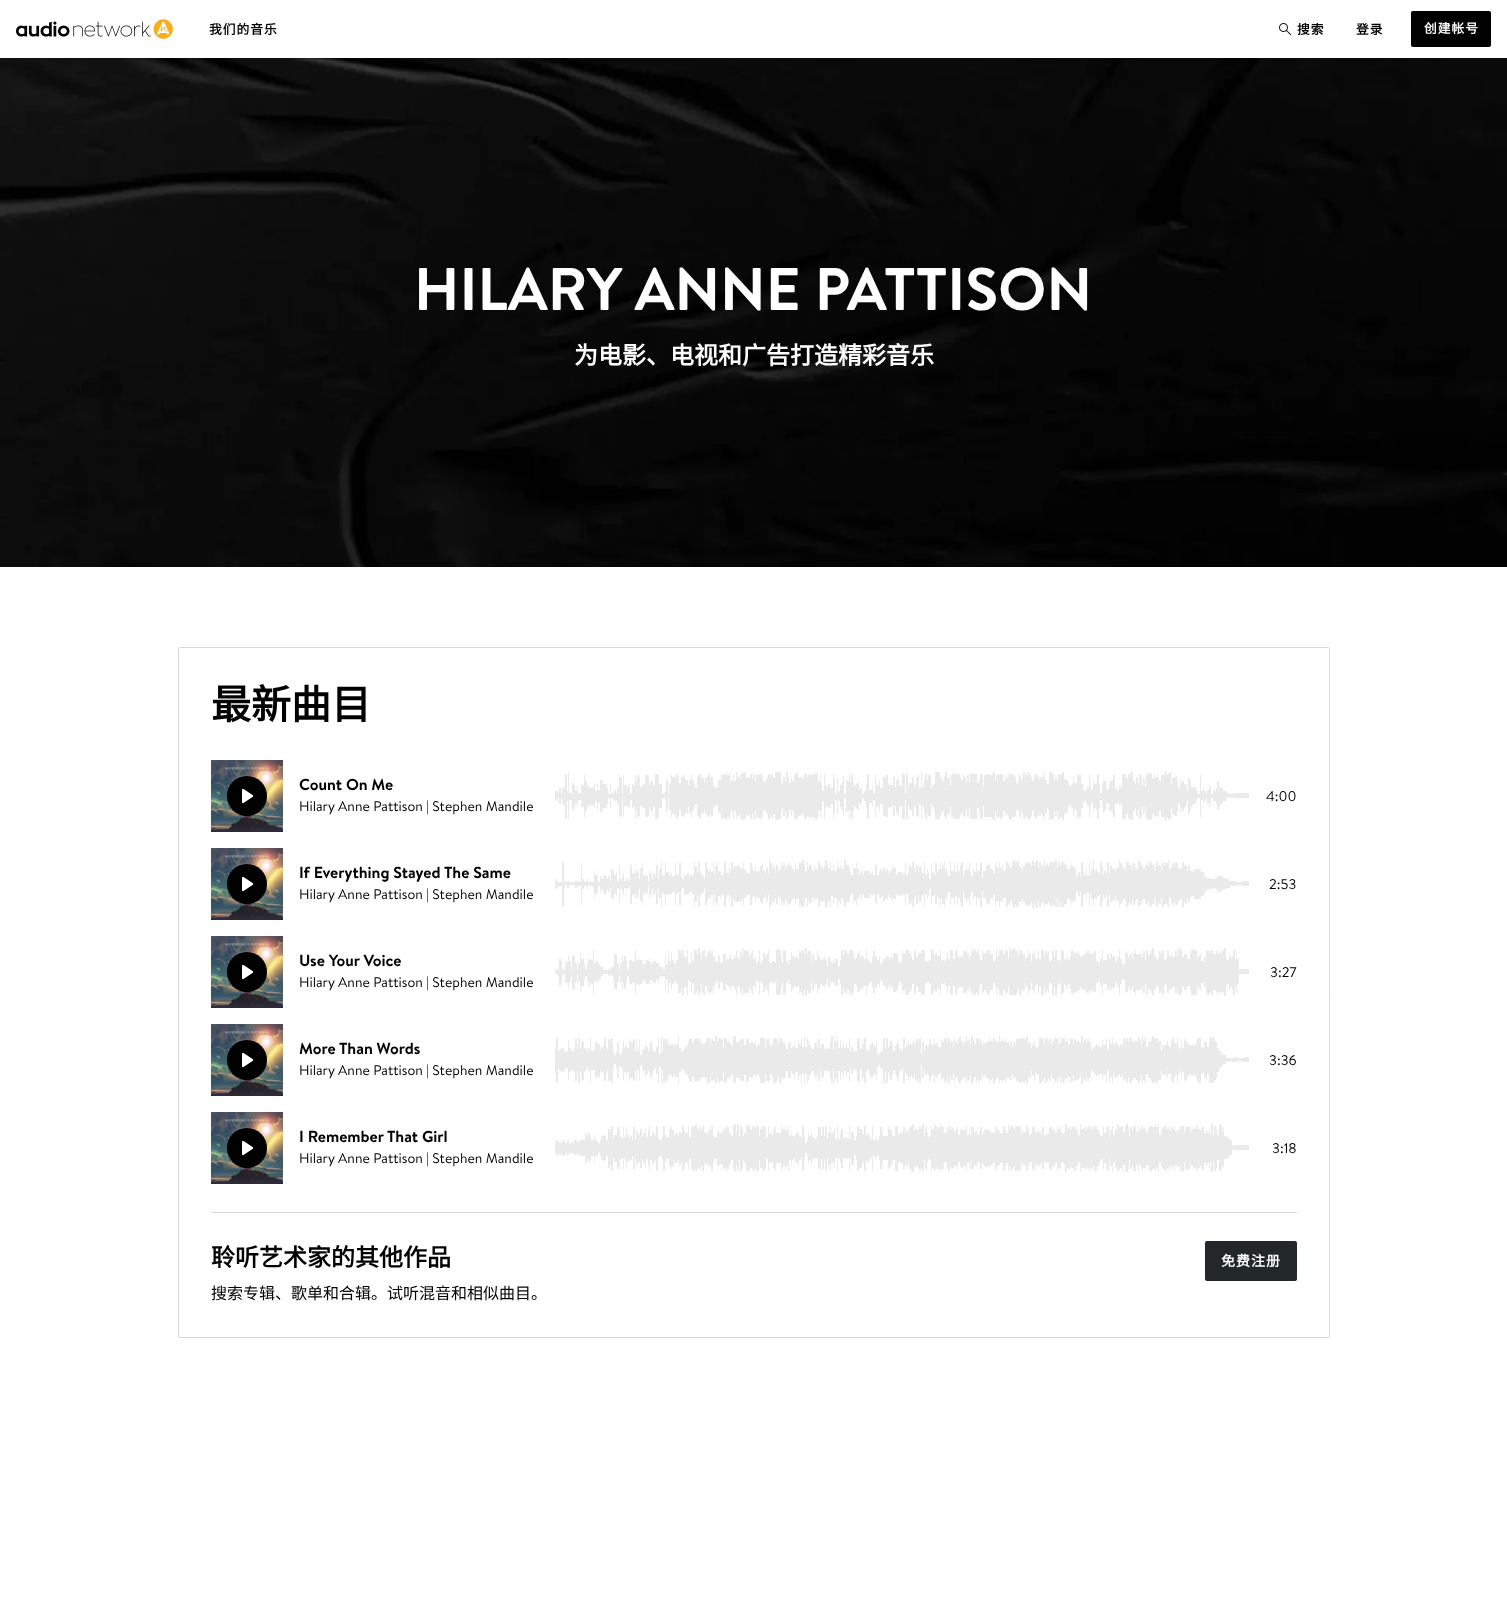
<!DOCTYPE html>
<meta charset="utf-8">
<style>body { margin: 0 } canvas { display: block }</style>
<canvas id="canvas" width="1507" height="1607"></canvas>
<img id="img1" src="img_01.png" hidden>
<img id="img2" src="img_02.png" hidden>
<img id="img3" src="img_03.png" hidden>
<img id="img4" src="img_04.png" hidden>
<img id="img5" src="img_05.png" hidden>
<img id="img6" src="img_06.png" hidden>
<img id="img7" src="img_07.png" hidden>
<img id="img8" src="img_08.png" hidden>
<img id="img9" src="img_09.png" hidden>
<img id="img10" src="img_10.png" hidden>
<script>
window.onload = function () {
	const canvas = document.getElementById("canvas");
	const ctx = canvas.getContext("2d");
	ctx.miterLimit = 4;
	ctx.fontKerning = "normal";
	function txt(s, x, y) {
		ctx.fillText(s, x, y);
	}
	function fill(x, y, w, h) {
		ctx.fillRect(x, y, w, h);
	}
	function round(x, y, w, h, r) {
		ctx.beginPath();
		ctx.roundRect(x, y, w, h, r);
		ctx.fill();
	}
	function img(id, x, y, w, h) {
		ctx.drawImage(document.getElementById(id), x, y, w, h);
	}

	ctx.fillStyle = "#FFFFFF";
	fill(0, 0, 1507, 1607);
	img("img1", 16, 19, 157, 20);
	img("img2", 1279, 23, 13, 13);
	ctx.fillStyle = "#010101";
	round(1411, 11, 80, 36, 2);
	img("img3", 0, 58, 1507, 509);
	ctx.beginPath();
	ctx.roundRect(178.5, 647.5, 1151, 690, 1.5);
	ctx.strokeStyle = "#D9DAD9";
	ctx.stroke();
	img("img4", 211, 760, 72, 72);
	ctx.beginPath();
	ctx.arc(247, 796, 20, 0, Math.PI * 2);
	ctx.fill();
	img("img5", 242, 788, 12, 16);
	img("img6", 555, 772, 694, 48);
	img("img4", 211, 848, 72, 72);
	ctx.beginPath();
	ctx.arc(247, 884, 20, 0, Math.PI * 2);
	ctx.fill();
	img("img5", 242, 876, 12, 16);
	img("img7", 555, 860, 694, 48);
	img("img4", 211, 936, 72, 72);
	ctx.beginPath();
	ctx.arc(247, 972, 20, 0, Math.PI * 2);
	ctx.fill();
	img("img5", 242, 964, 12, 16);
	img("img8", 555, 948, 694, 48);
	img("img4", 211, 1024, 72, 72);
	ctx.beginPath();
	ctx.arc(247, 1060, 20, 0, Math.PI * 2);
	ctx.fill();
	img("img5", 242, 1052, 12, 16);
	img("img9", 555, 1036, 694, 48);
	img("img4", 211, 1112, 72, 72);
	ctx.beginPath();
	ctx.arc(247, 1148, 20, 0, Math.PI * 2);
	ctx.fill();
	img("img5", 242, 1140, 12, 16);
	img("img10", 555, 1124, 694, 48);
	ctx.fillStyle = "#D9DAD9";
	fill(211, 1212, 1086, 1);
	ctx.fillStyle = "#22272A";
	round(1205, 1241, 92, 40, 2);
	ctx.letterSpacing = "1px";
	ctx.font = "bold 12.75px Noto Sans CJK SC";
	ctx.fillStyle = "#010101";
	txt("我们的音乐", 209, 34);
	txt("搜索", 1297, 34);
	txt("登录", 1356, 34);
	ctx.fillStyle = "#FFFFFF";
	txt("创建帐号", 1424, 33);
	ctx.letterSpacing = "0px";
	ctx.font = "60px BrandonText";
	txt("HILARY ANNE PATTISON", 414, 310);
	ctx.font = "bold 24px Noto Sans CJK SC";
	txt("为电影、电视和广告打造精彩音乐", 574, 364);
	ctx.font = "bold 40px Noto Sans CJK SC";
	ctx.fillStyle = "#010101";
	txt("最新曲目", 211, 719);
	ctx.font = "16px BrandonText";
	txt("Count On Me", 299, 790);
	ctx.font = "14px 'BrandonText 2'";
	txt("4:00", 1266, 801);
	txt("Hilary Anne Pattison | Stephen Mandile", 299, 811);
	ctx.font = "16px BrandonText";
	txt("If Everything Stayed The Same", 299, 878);
	ctx.font = "14px 'BrandonText 2'";
	txt("2:53", 1269, 889);
	txt("Hilary Anne Pattison | Stephen Mandile", 299, 899);
	ctx.font = "16px BrandonText";
	txt("Use Your Voice", 299, 966);
	ctx.font = "14px 'BrandonText 2'";
	txt("3:27", 1270, 977);
	txt("Hilary Anne Pattison | Stephen Mandile", 299, 987);
	ctx.font = "16px BrandonText";
	txt("More Than Words", 299, 1054);
	ctx.font = "14px 'BrandonText 2'";
	txt("3:36", 1269, 1065);
	txt("Hilary Anne Pattison | Stephen Mandile", 299, 1075);
	ctx.font = "16px BrandonText";
	txt("I Remember That Girl", 299, 1142);
	ctx.font = "14px 'BrandonText 2'";
	txt("3:18", 1272, 1153);
	txt("Hilary Anne Pattison | Stephen Mandile", 299, 1163);
	ctx.font = "bold 24px Noto Sans CJK SC";
	txt("聆听艺术家的其他作品", 211, 1266);
	ctx.font = "16px Noto Sans CJK SC";
	txt("搜索专辑、歌单和合辑。试听混音和相似曲目。", 211, 1299);
	ctx.letterSpacing = "1px";
	ctx.font = "bold 14px Noto Sans CJK SC";
	ctx.fillStyle = "#FFFFFF";
	txt("免费注册", 1221, 1266);
};
</script>
